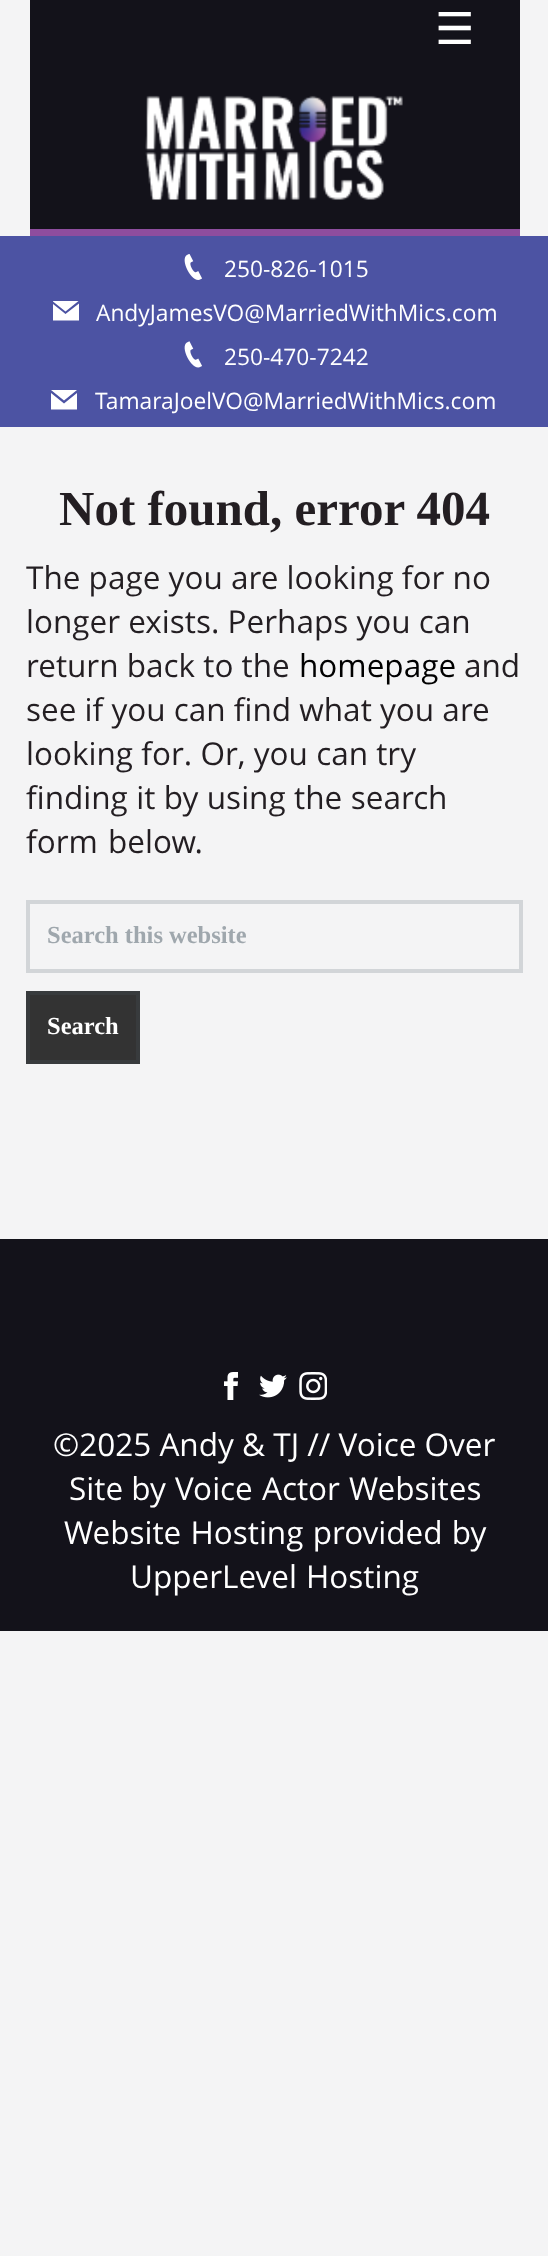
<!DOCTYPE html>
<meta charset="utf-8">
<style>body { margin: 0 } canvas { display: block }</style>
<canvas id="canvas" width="548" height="2256"></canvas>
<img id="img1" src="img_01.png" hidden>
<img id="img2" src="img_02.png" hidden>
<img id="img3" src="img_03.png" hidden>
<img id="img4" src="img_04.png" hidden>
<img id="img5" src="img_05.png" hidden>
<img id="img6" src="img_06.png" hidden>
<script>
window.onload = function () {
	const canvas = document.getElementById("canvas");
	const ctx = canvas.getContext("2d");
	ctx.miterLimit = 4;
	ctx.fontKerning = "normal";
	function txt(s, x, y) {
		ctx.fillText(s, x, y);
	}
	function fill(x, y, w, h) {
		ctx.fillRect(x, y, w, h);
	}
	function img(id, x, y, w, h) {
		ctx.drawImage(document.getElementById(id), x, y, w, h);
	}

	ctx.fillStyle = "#F4F4F5";
	fill(0, 0, 548, 2256);
	ctx.fillStyle = "#13121A";
	fill(30, 0, 490, 229);
	ctx.fillStyle = "#8E4D9E";
	fill(30, 229, 490, 7);
	img("img1", 145, 95, 258, 105);
	ctx.fillStyle = "#4C53A3";
	fill(0, 236, 548, 191);
	img("img2", 184, 254, 18, 26);
	ctx.save();
	ctx.beginPath();
	ctx.rect(53, 298, 26, 26);
	ctx.clip();
	ctx.fillStyle = "#FFFFFF";
	ctx.beginPath();
	ctx.moveTo(65.5, 311.5);
	ctx.lineTo(52.5, 301);
	ctx.lineTo(78.5, 301);
	ctx.closePath();
	ctx.moveTo(65.5, 314);
	ctx.lineTo(52.5, 303.5);
	ctx.lineTo(52.5, 320.5);
	ctx.lineTo(79, 320.5);
	ctx.lineTo(79, 303.5);
	ctx.closePath();
	ctx.fill();
	ctx.restore();
	img("img3", 184, 341, 18, 27);
	ctx.fillStyle = "#FFFFFF";
	ctx.beginPath();
	ctx.moveTo(64, 400.5);
	ctx.lineTo(51, 390);
	ctx.lineTo(77, 390);
	ctx.closePath();
	ctx.moveTo(64, 403.5);
	ctx.lineTo(51, 393);
	ctx.lineTo(51, 409.5);
	ctx.lineTo(77, 409.5);
	ctx.lineTo(77, 393);
	ctx.closePath();
	ctx.fill();
	ctx.strokeStyle = "#D2D5D8";
	ctx.lineWidth = 4;
	ctx.strokeRect(28, 902, 493, 69);
	ctx.fillStyle = "#333333";
	ctx.beginPath();
	ctx.rect(28, 993, 110, 69);
	ctx.fill();
	ctx.strokeStyle = "#383B3D";
	ctx.stroke();
	ctx.fillStyle = "#13121A";
	fill(0, 1239, 548, 392);
	img("img4", 224, 1372, 14, 28);
	img("img5", 259, 1374, 28, 24);
	img("img6", 299, 1372, 28, 28);
	ctx.font = "44px DejaVu Sans";
	ctx.fillStyle = "#FFFFFF";
	txt("☰", 435, 44);
	ctx.font = "22.75px Open Sans";
	txt("250-826-1015", 224, 277);
	txt("AndyJamesVO@MarriedWithMics.com", 96, 321);
	txt("250-470-7242", 224, 365);
	txt("TamaraJoelVO@MarriedWithMics.com", 95, 409);
	ctx.font = "bold 49px Liberation Serif";
	ctx.fillStyle = "#231E22";
	txt("Not found, error 404", 59, 525);
	ctx.font = "31.5px Open Sans";
	txt("The page you are looking for no", 26, 589);
	txt("longer exists. Perhaps you can", 26, 633);
	txt("return back to the", 26, 677);
	ctx.fillStyle = "#000000";
	txt("homepage", 299, 677);
	ctx.fillStyle = "#231E22";
	txt("and", 464, 677);
	txt("see if you can find what you are", 26, 721);
	txt("looking for. Or, you can try", 26, 765);
	ctx.wordSpacing = "0.25px";
	txt("finding it by using the search", 26, 809);
	ctx.wordSpacing = "2px";
	txt("form below.", 26, 853);
	ctx.wordSpacing = "0px";
	ctx.font = "bold 24.5px Liberation Serif";
	ctx.fillStyle = "#9FA7AD";
	txt("Search this website", 47, 943);
	ctx.fillStyle = "#FFFFFF";
	txt("Search", 47, 1034);
	ctx.font = "31.5px Open Sans";
	txt("©2025 Andy & TJ // Voice Over", 53, 1456);
	txt("Site by", 69, 1500);
	ctx.wordSpacing = "1px";
	txt("Voice Actor Websites", 175, 1500);
	txt("Website Hosting provided by", 64, 1544);
	txt("UpperLevel Hosting", 130, 1588);
};
</script>
